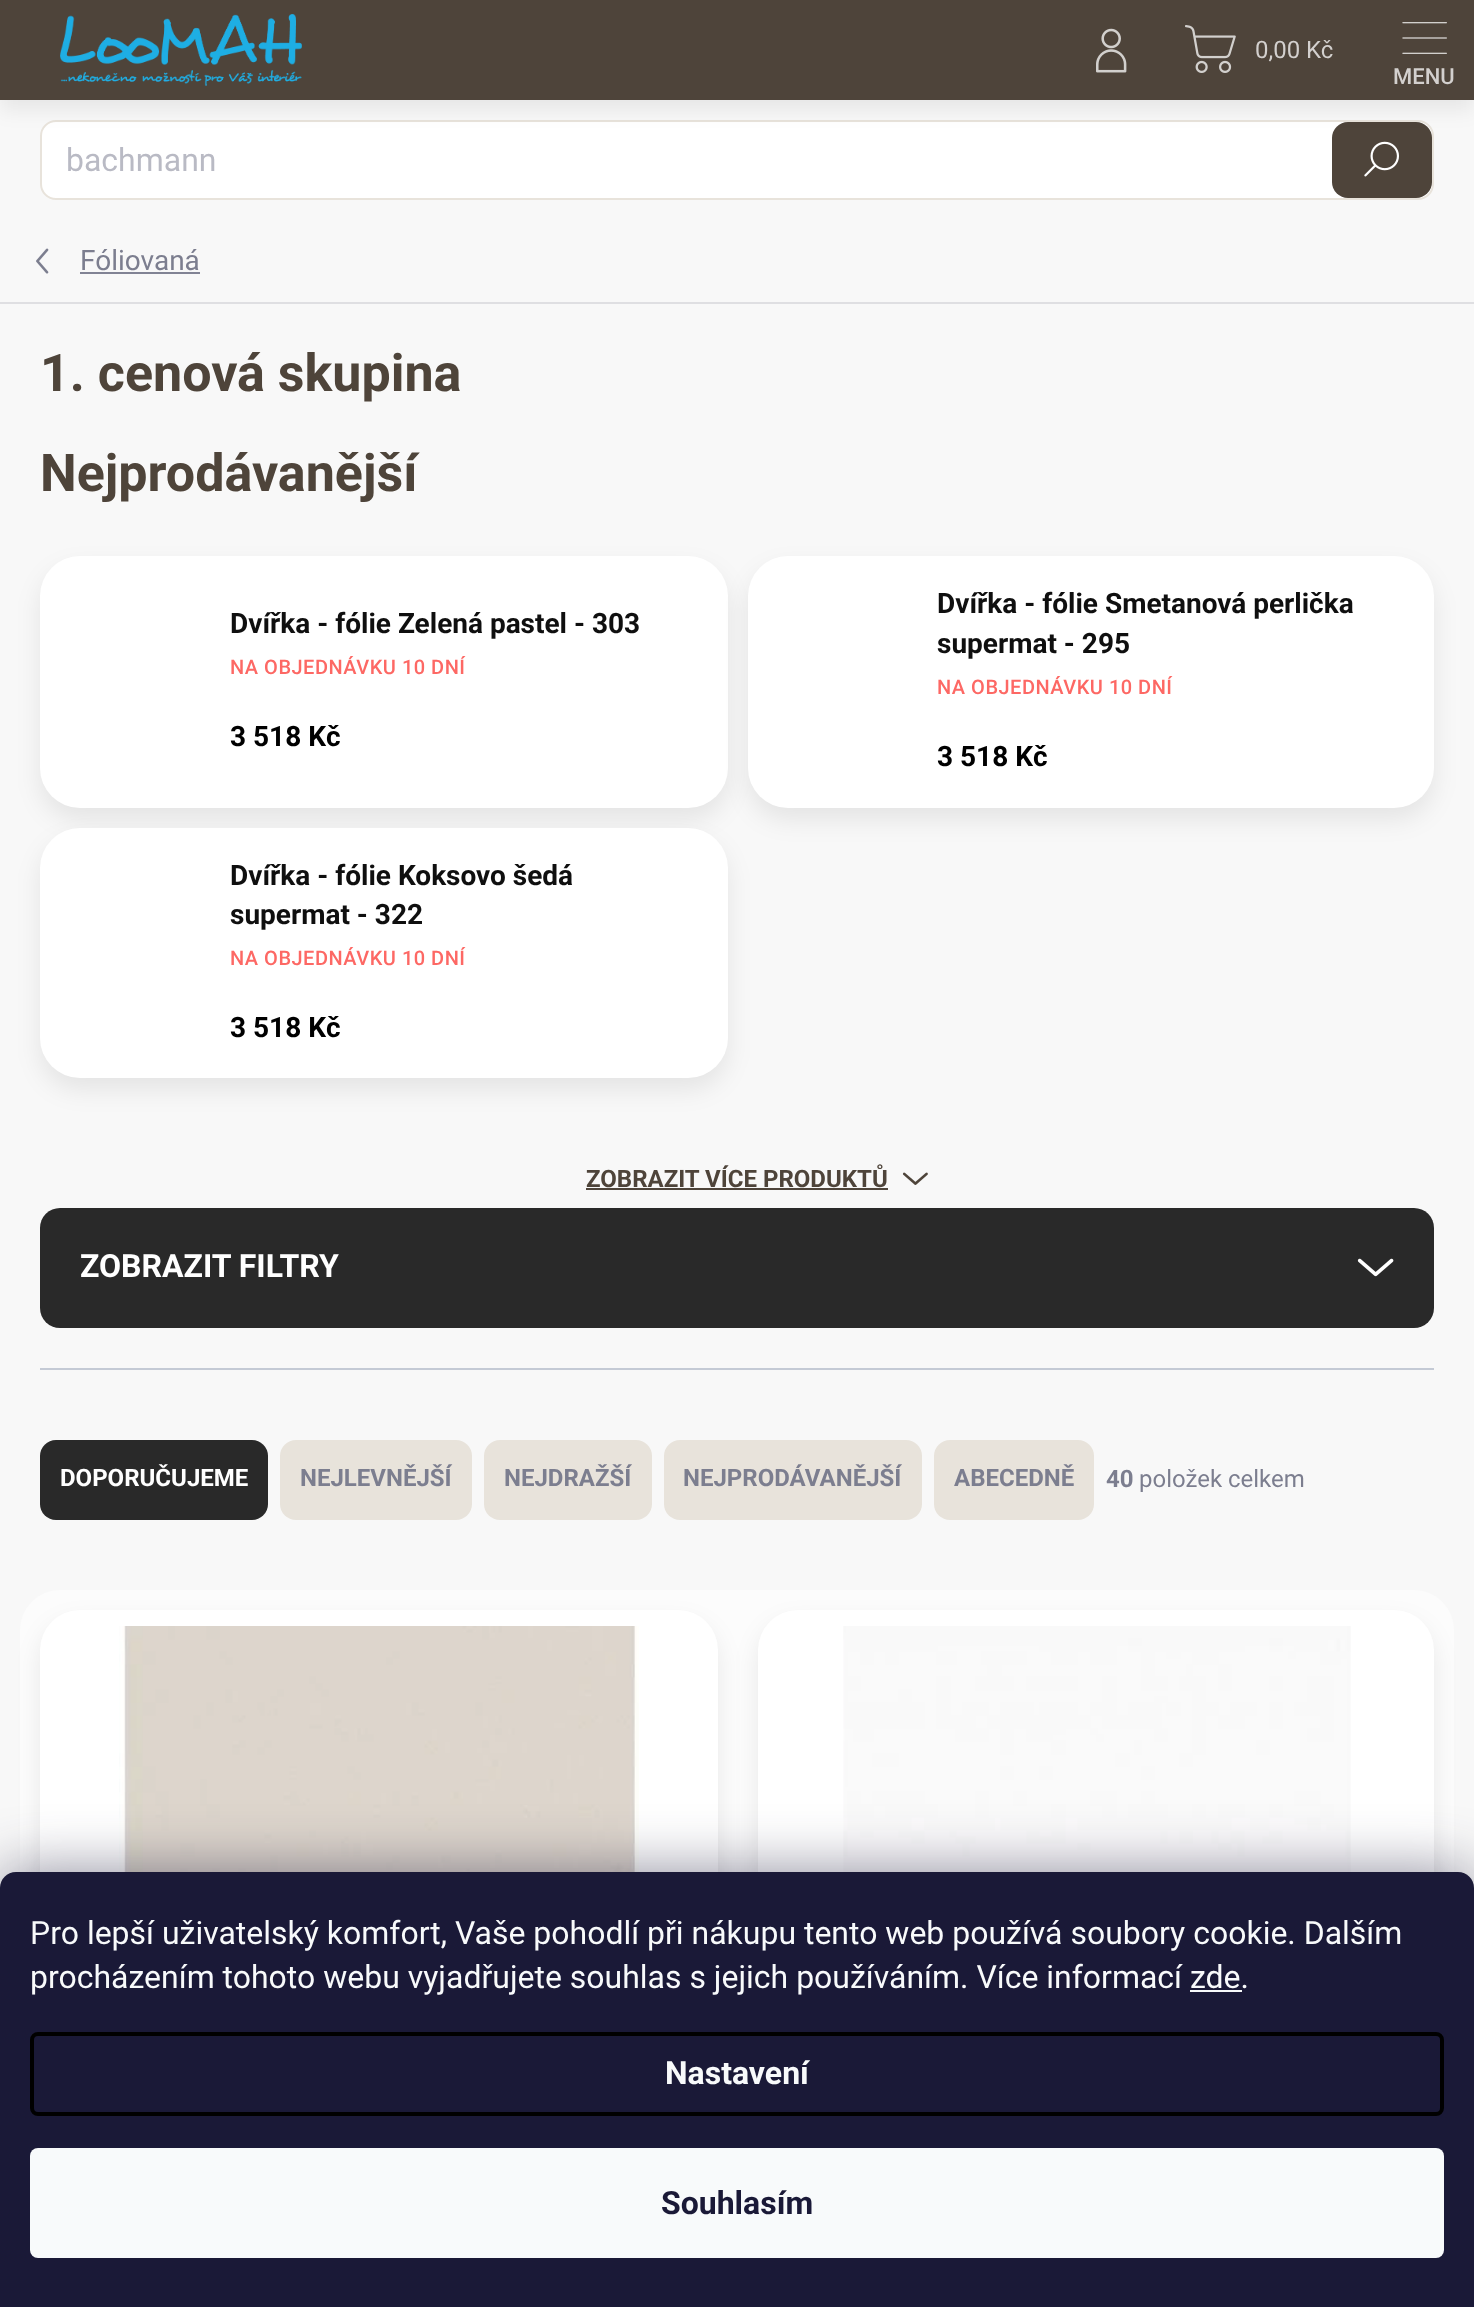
<!DOCTYPE html>
<meta charset="utf-8">
<style>body { margin: 0 } canvas { display: block }</style>
<canvas id="canvas" width="1474" height="2307"></canvas>
<img id="img1" src="img_01.png" hidden>
<img id="img2" src="img_02.png" hidden>
<img id="img3" src="img_03.png" hidden>
<img id="img4" src="img_04.png" hidden>
<img id="img5" src="img_05.png" hidden>
<img id="img6" src="img_06.png" hidden>
<img id="img7" src="img_07.png" hidden>
<img id="img8" src="img_08.png" hidden>
<img id="img9" src="img_09.png" hidden>
<img id="img10" src="img_10.png" hidden>
<script>
window.onload = function () {
	const canvas = document.getElementById("canvas");
	const ctx = canvas.getContext("2d");
	ctx.miterLimit = 4;
	ctx.fontKerning = "normal";
	function txt(s, x, y) {
		ctx.fillText(s, x, y);
	}
	function fill(x, y, w, h) {
		ctx.fillRect(x, y, w, h);
	}
	function round(x, y, w, h, r) {
		ctx.beginPath();
		ctx.roundRect(x, y, w, h, r);
		ctx.fill();
	}
	function img(id, x, y, w, h) {
		ctx.drawImage(document.getElementById(id), x, y, w, h);
	}

	ctx.fillStyle = "#F8F8F8";
	fill(0, 0, 1474, 2307);
	ctx.fillStyle = "#FFFFFF";
	ctx.beginPath();
	ctx.roundRect(41, 121, 1392, 78, 15);
	ctx.fill();
	ctx.strokeStyle = "#E8E3DB";
	ctx.lineWidth = 2;
	ctx.stroke();
	ctx.fillStyle = "#4E443A";
	round(1332, 122, 100, 76, 16);
	ctx.fillStyle = "rgba(0, 0, 0, 0.07)";
	ctx.filter = "blur(10px)";
	ctx.beginPath();
	ctx.rect(0, 10, 1474, 100);
	ctx.fill();
	ctx.filter = "none";
	ctx.fillStyle = "#4E443A";
	fill(0, 0, 1474, 100);
	img("img1", 60, 14, 242, 72);
	img("img2", 1096, 28, 31, 45);
	img("img3", 1185, 25, 51, 48);
	img("img4", 1402, 22, 45, 32);
	img("img5", 1364, 141, 35, 36);
	ctx.fillStyle = "#DFDFE2";
	fill(0, 302, 1474, 2);
	img("img6", 36, 248, 13, 26);
	ctx.fillStyle = "#818394";
	fill(80, 272, 120, 2);
	ctx.fillStyle = "rgba(0, 0, 0, 0.08)";
	ctx.filter = "blur(12px)";
	ctx.beginPath();
	ctx.roundRect(40, 568, 688, 252, 40);
	ctx.fill();
	ctx.filter = "none";
	ctx.fillStyle = "#FFFFFF";
	round(40, 556, 688, 252, 40);
	ctx.fillStyle = "rgba(0, 0, 0, 0.08)";
	ctx.filter = "blur(12px)";
	ctx.beginPath();
	ctx.roundRect(748, 568, 686, 252, 40);
	ctx.fill();
	ctx.filter = "none";
	ctx.fillStyle = "#FFFFFF";
	round(748, 556, 686, 252, 40);
	ctx.fillStyle = "rgba(0, 0, 0, 0.08)";
	ctx.filter = "blur(12px)";
	ctx.beginPath();
	ctx.roundRect(40, 840, 688, 250, 40);
	ctx.fill();
	ctx.filter = "none";
	ctx.fillStyle = "#FFFFFF";
	round(40, 828, 688, 250, 40);
	ctx.fillStyle = "#4E443A";
	fill(586, 1188, 302, 2);
	img("img7", 902, 1172, 26, 13);
	ctx.fillStyle = "#292929";
	round(40, 1208, 1394, 120, 20);
	img("img8", 1357, 1258, 37, 19);
	ctx.fillStyle = "#C4CAD5";
	fill(40, 1368, 1394, 2);
	ctx.fillStyle = "#292929";
	round(40, 1440, 228, 80, 16);
	ctx.fillStyle = "#E8E3DB";
	round(280, 1440, 192, 80, 16);
	round(484, 1440, 168, 80, 16);
	round(664, 1440, 258, 80, 16);
	round(934, 1440, 160, 80, 16);
	ctx.fillStyle = "#FCFCFC";
	round(20, 1590, 1434, 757, 40);
	ctx.fillStyle = "rgba(0, 0, 0, 0.08)";
	ctx.filter = "blur(12px)";
	ctx.beginPath();
	ctx.roundRect(40, 1622, 678, 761, 40);
	ctx.fill();
	ctx.filter = "none";
	ctx.fillStyle = "#FFFFFF";
	round(40, 1610, 678, 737, 40);
	img("img9", 119, 1626, 520, 246);
	ctx.fillStyle = "rgba(0, 0, 0, 0.08)";
	ctx.filter = "blur(12px)";
	ctx.beginPath();
	ctx.roundRect(758, 1622, 676, 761, 40);
	ctx.fill();
	ctx.filter = "none";
	ctx.fillStyle = "#FFFFFF";
	round(758, 1610, 676, 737, 40);
	img("img10", 843, 1626, 508, 246);
	ctx.fillStyle = "rgba(27, 25, 57, 0.5)";
	ctx.filter = "blur(30px)";
	ctx.beginPath();
	ctx.roundRect(0, 1872, 1474, 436, 16);
	ctx.fill();
	ctx.filter = "none";
	ctx.fillStyle = "#1A1937";
	ctx.beginPath();
	ctx.moveTo(16, 1872);
	ctx.lineTo(1458, 1872);
	ctx.bezierCurveTo(1467, 1872, 1474, 1879, 1474, 1888);
	ctx.lineTo(1474, 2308);
	ctx.lineTo(0, 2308);
	ctx.lineTo(0, 1888);
	ctx.bezierCurveTo(0, 1879, 7, 1872, 16, 1872);
	ctx.closePath();
	ctx.fill();
	ctx.fillStyle = "#F8FAFB";
	fill(1190, 1990, 52, 2);
	ctx.beginPath();
	ctx.roundRect(32, 2034, 1410, 80, 6);
	ctx.strokeStyle = "#000000";
	ctx.lineWidth = 4;
	ctx.stroke();
	round(30, 2148, 1414, 110, 8);
	ctx.font = "24px Roboto";
	ctx.fillStyle = "#D3D0CE";
	txt("0,00 Kč", 1255, 58);
	ctx.font = "500 22px Roboto";
	txt("MENU", 1393, 84);
	ctx.font = "32px Roboto";
	ctx.fillStyle = "#B9BAC4";
	txt("bachmann", 66, 171);
	ctx.font = "28px 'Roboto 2'";
	ctx.fillStyle = "#7C7E8F";
	txt("Fóliovaná", 80, 270);
	ctx.font = "bold 52px Roboto";
	ctx.fillStyle = "#4E443A";
	txt("1. cenová skupina", 40, 391);
	txt("Nejprodávanější", 40, 491);
	ctx.font = "bold 28px Roboto";
	ctx.fillStyle = "#0F0F0F";
	txt("Dvířka - fólie Zelená pastel - 303", 230, 633);
	ctx.letterSpacing = "0.5px";
	ctx.font = "500 20px Roboto";
	ctx.fillStyle = "#FD6864";
	txt("NA OBJEDNÁVKU 10 DNÍ", 230, 674);
	ctx.letterSpacing = "0px";
	ctx.font = "bold 28px Roboto";
	ctx.fillStyle = "#000000";
	txt("3 518 Kč", 230, 746);
	ctx.fillStyle = "#0F0F0F";
	txt("Dvířka - fólie Smetanová perlička", 937, 613);
	txt("supermat - 295", 937, 653);
	ctx.letterSpacing = "0.5px";
	ctx.font = "500 20px Roboto";
	ctx.fillStyle = "#FD6864";
	txt("NA OBJEDNÁVKU 10 DNÍ", 937, 694);
	ctx.letterSpacing = "0px";
	ctx.font = "bold 28px Roboto";
	ctx.fillStyle = "#000000";
	txt("3 518 Kč", 937, 766);
	ctx.fillStyle = "#0F0F0F";
	txt("Dvířka - fólie Koksovo šedá", 230, 885);
	txt("supermat - 322", 230, 924);
	ctx.letterSpacing = "0.5px";
	ctx.font = "500 20px Roboto";
	ctx.fillStyle = "#FD6864";
	txt("NA OBJEDNÁVKU 10 DNÍ", 230, 965);
	ctx.letterSpacing = "0px";
	ctx.font = "bold 28px Roboto";
	ctx.fillStyle = "#000000";
	txt("3 518 Kč", 230, 1037);
	ctx.font = "bold 24px Roboto";
	ctx.fillStyle = "#4E443A";
	txt("ZOBRAZIT VÍCE PRODUKTŮ", 586, 1187);
	ctx.font = "bold 32px Roboto";
	ctx.fillStyle = "#FFFFFF";
	txt("ZOBRAZIT FILTRY", 80, 1277);
	ctx.font = "bold 24px Roboto";
	txt("DOPORUČUJEME", 60, 1486);
	ctx.fillStyle = "#7C7E8F";
	txt("NEJLEVNĚJŠÍ", 300, 1486);
	txt("NEJDRAŽŠÍ", 504, 1486);
	txt("NEJPRODÁVANĚJŠÍ", 683, 1486);
	txt("ABECEDNĚ", 954, 1486);
	txt("40", 1106, 1487);
	ctx.font = "24px Roboto";
	txt("položek celkem", 1139, 1487);
	ctx.font = "32px Roboto";
	ctx.fillStyle = "#F8FAFB";
	txt("Pro lepší uživatelský komfort, Vaše pohodlí při nákupu tento web používá soubory cookie. Dalším", 30, 1944);
	txt("procházením tohoto webu vyjadřujete souhlas s jejich používáním. Více informací zde.", 30, 1988);
	ctx.font = "bold 32px Roboto";
	txt("Nastavení", 665, 2084);
	ctx.fillStyle = "#1A1937";
	txt("Souhlasím", 661, 2214);
};
</script>
